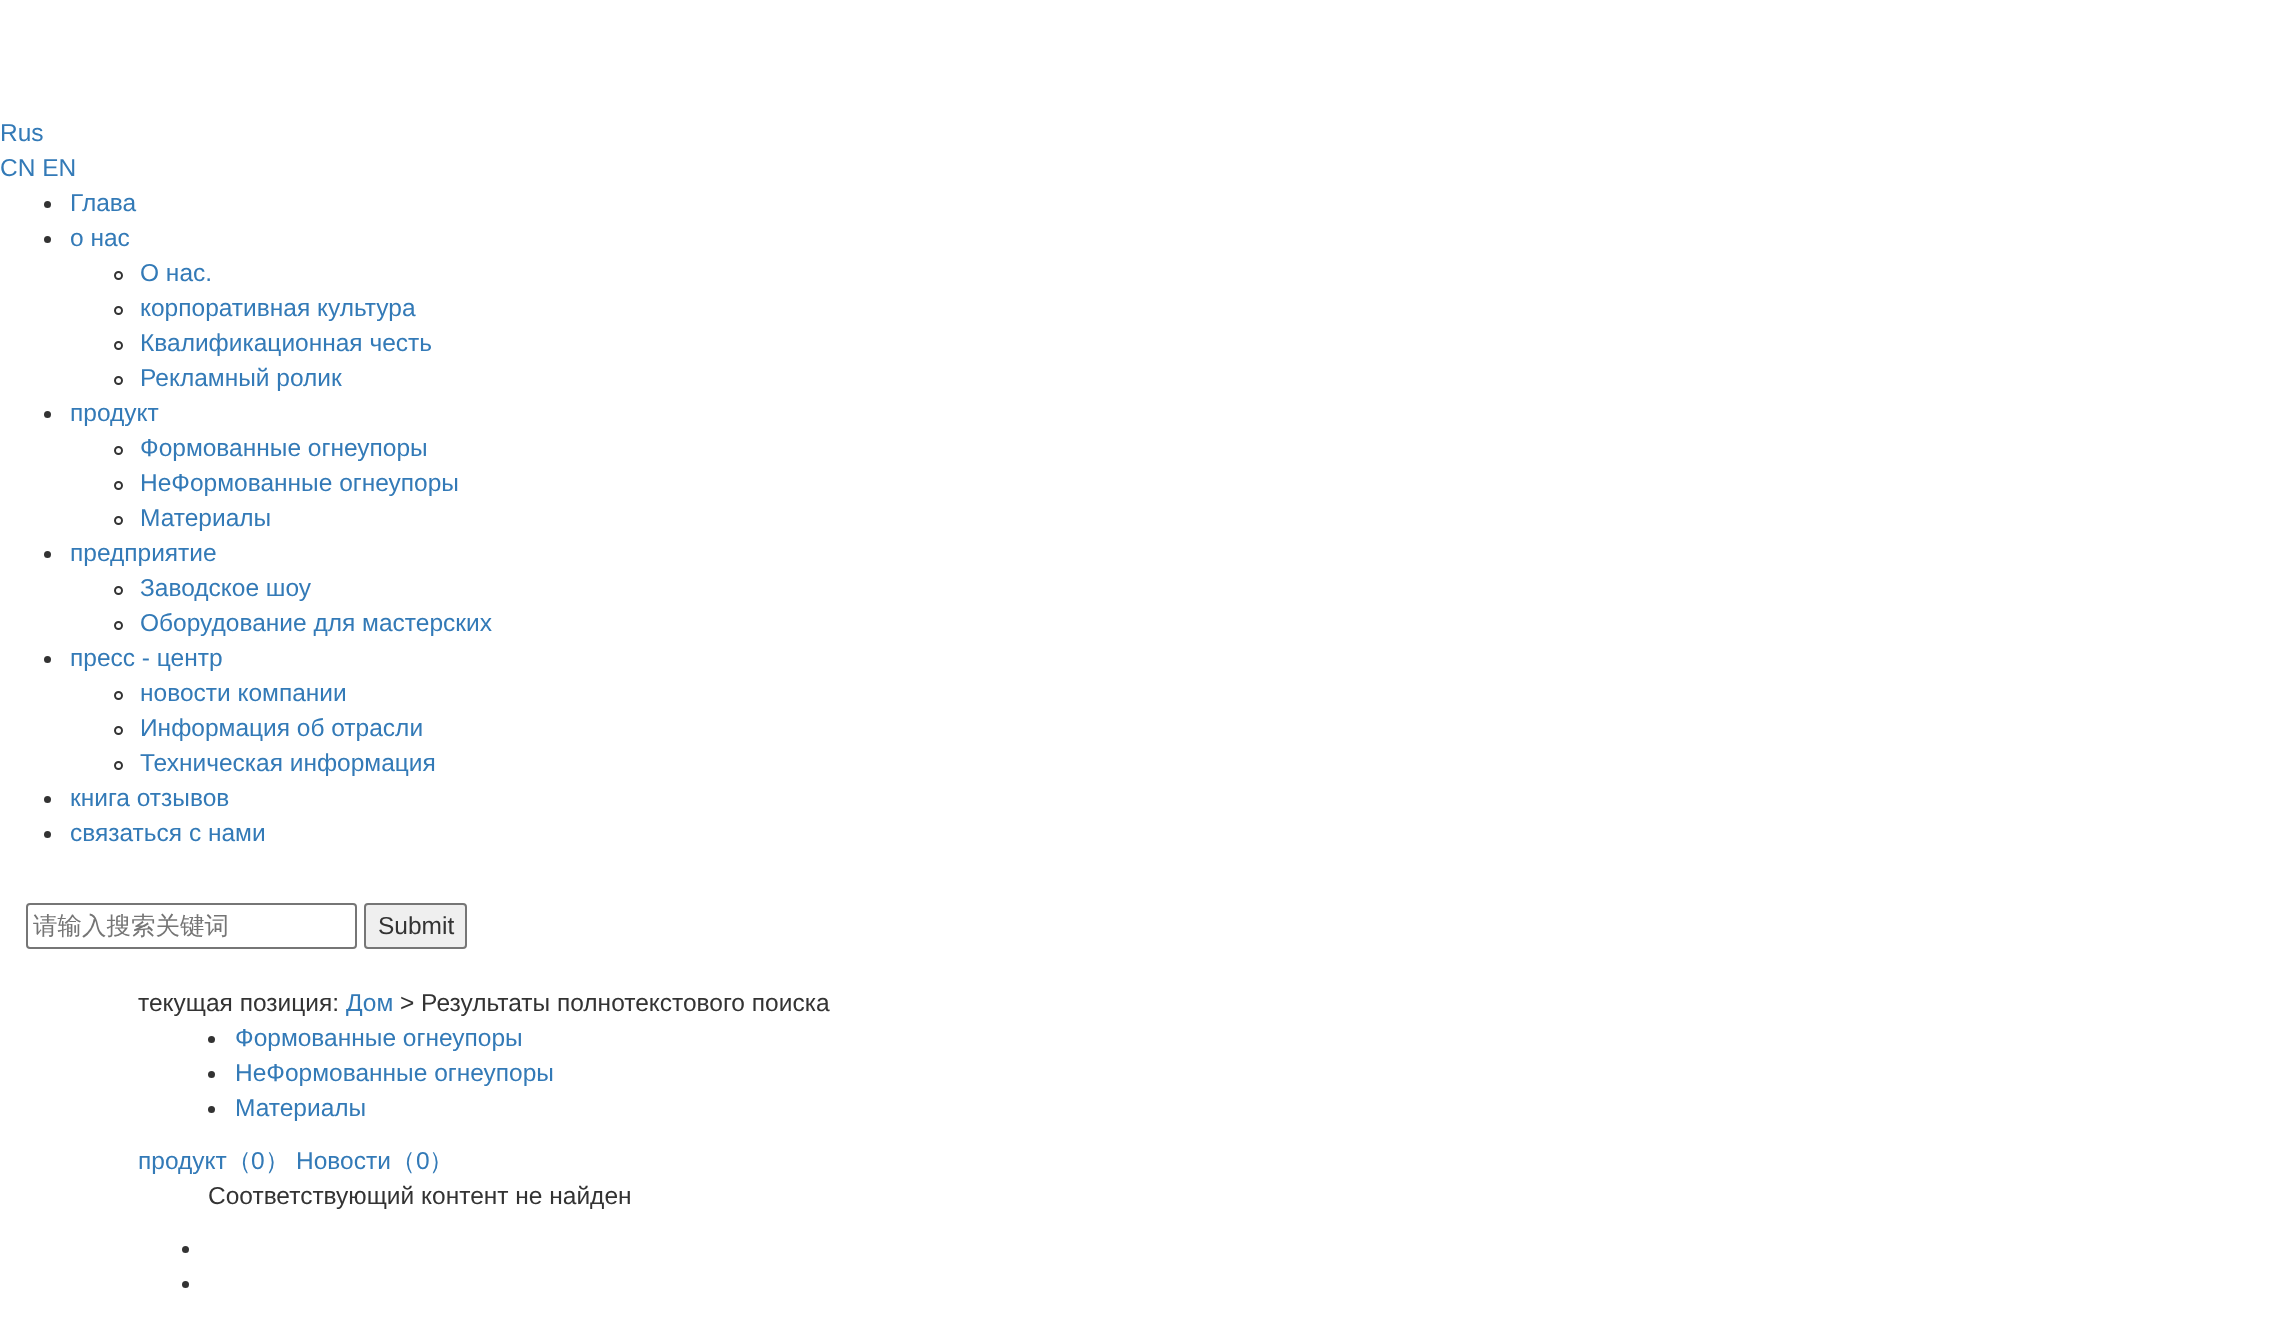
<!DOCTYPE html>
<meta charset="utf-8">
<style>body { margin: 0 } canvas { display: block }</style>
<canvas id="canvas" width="2271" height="1335"></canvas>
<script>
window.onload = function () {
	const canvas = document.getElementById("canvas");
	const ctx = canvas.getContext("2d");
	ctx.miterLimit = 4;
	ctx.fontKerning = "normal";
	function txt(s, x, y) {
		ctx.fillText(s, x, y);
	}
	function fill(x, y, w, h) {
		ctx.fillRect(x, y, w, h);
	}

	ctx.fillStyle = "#FFFFFF";
	fill(0, 0, 2271, 1335);
	ctx.fillStyle = "#333333";
	ctx.beginPath();
	ctx.arc(47.5, 204.5, 3.5, 0, Math.PI * 2);
	ctx.fill();
	ctx.beginPath();
	ctx.arc(47.5, 239.5, 3.5, 0, Math.PI * 2);
	ctx.fill();
	ctx.beginPath();
	ctx.arc(118.5, 275.5, 3.5, 0, Math.PI * 2);
	ctx.strokeStyle = "#333333";
	ctx.lineWidth = 2;
	ctx.stroke();
	ctx.beginPath();
	ctx.arc(118.5, 310.5, 3.5, 0, Math.PI * 2);
	ctx.stroke();
	ctx.beginPath();
	ctx.arc(118.5, 345.5, 3.5, 0, Math.PI * 2);
	ctx.stroke();
	ctx.beginPath();
	ctx.arc(118.5, 380.5, 3.5, 0, Math.PI * 2);
	ctx.stroke();
	ctx.beginPath();
	ctx.arc(47.5, 414.5, 3.5, 0, Math.PI * 2);
	ctx.fill();
	ctx.beginPath();
	ctx.arc(118.5, 450.5, 3.5, 0, Math.PI * 2);
	ctx.stroke();
	ctx.beginPath();
	ctx.arc(118.5, 485.5, 3.5, 0, Math.PI * 2);
	ctx.stroke();
	ctx.beginPath();
	ctx.arc(118.5, 520.5, 3.5, 0, Math.PI * 2);
	ctx.stroke();
	ctx.beginPath();
	ctx.arc(47.5, 554.5, 3.5, 0, Math.PI * 2);
	ctx.fill();
	ctx.beginPath();
	ctx.arc(118.5, 590.5, 3.5, 0, Math.PI * 2);
	ctx.stroke();
	ctx.beginPath();
	ctx.arc(118.5, 625.5, 3.5, 0, Math.PI * 2);
	ctx.stroke();
	ctx.beginPath();
	ctx.arc(47.5, 659.5, 3.5, 0, Math.PI * 2);
	ctx.fill();
	ctx.beginPath();
	ctx.arc(118.5, 695.5, 3.5, 0, Math.PI * 2);
	ctx.stroke();
	ctx.beginPath();
	ctx.arc(118.5, 730.5, 3.5, 0, Math.PI * 2);
	ctx.stroke();
	ctx.beginPath();
	ctx.arc(118.5, 765.5, 3.5, 0, Math.PI * 2);
	ctx.stroke();
	ctx.beginPath();
	ctx.arc(47.5, 799.5, 3.5, 0, Math.PI * 2);
	ctx.fill();
	ctx.beginPath();
	ctx.arc(47.5, 834.5, 3.5, 0, Math.PI * 2);
	ctx.fill();
	ctx.beginPath();
	ctx.roundRect(27, 904, 329, 44, 3);
	ctx.strokeStyle = "#767676";
	ctx.stroke();
	ctx.fillStyle = "#EFEFEF";
	ctx.beginPath();
	ctx.roundRect(365, 904, 101, 44, 3);
	ctx.fill();
	ctx.stroke();
	ctx.fillStyle = "#333333";
	ctx.beginPath();
	ctx.arc(211.5, 1039.5, 3.5, 0, Math.PI * 2);
	ctx.fill();
	ctx.beginPath();
	ctx.arc(211.5, 1074.5, 3.5, 0, Math.PI * 2);
	ctx.fill();
	ctx.beginPath();
	ctx.arc(211.5, 1109.5, 3.5, 0, Math.PI * 2);
	ctx.fill();
	ctx.beginPath();
	ctx.arc(185.5, 1249.5, 3.5, 0, Math.PI * 2);
	ctx.fill();
	ctx.beginPath();
	ctx.arc(185.5, 1284.5, 3.5, 0, Math.PI * 2);
	ctx.fill();
	ctx.font = "24.5px Liberation Sans";
	ctx.fillStyle = "#337AB7";
	txt("Rus", 0, 141);
	txt("CN EN", 0, 176);
	txt("Глава", 70, 211);
	txt("о нас", 70, 246);
	txt("О нас.", 140, 281);
	txt("корпоративная культура", 140, 316);
	txt("Квалификационная честь", 140, 351);
	txt("Рекламный ролик", 140, 386);
	txt("продукт", 70, 421);
	txt("Формованные огнеупоры", 140, 456);
	txt("НеФормованные огнеупоры", 140, 491);
	txt("Материалы", 140, 526);
	txt("предприятие", 70, 561);
	txt("Заводское шоу", 140, 596);
	txt("Оборудование для мастерских", 140, 631);
	txt("пресс - центр", 70, 666);
	txt("новости компании", 140, 701);
	txt("Информация об отрасли", 140, 736);
	txt("Техническая информация", 140, 771);
	txt("книга отзывов", 70, 806);
	txt("связаться с нами", 70, 841);
	ctx.font = "500 24.5px WenQuanYi Zen Hei";
	ctx.fillStyle = "#757575";
	txt("请输入搜索关键词", 33, 934);
	ctx.font = "24.5px Liberation Sans";
	ctx.fillStyle = "#333333";
	txt("Submit", 378, 934);
	txt("текущая позиция:", 138, 1011);
	ctx.fillStyle = "#337AB7";
	txt("Дом", 346, 1011);
	ctx.fillStyle = "#333333";
	txt("> Результаты полнотекстового поиска", 400, 1011);
	ctx.fillStyle = "#337AB7";
	txt("Формованные огнеупоры", 235, 1046);
	txt("НеФормованные огнеупоры", 235, 1081);
	txt("Материалы", 235, 1116);
	txt("продукт", 138, 1169);
	ctx.font = "500 24.5px WenQuanYi Zen Hei";
	txt("（", 227, 1169);
	ctx.font = "24.5px Liberation Sans";
	txt("0", 251, 1169);
	ctx.font = "500 24.5px WenQuanYi Zen Hei";
	txt("）", 265, 1169);
	ctx.font = "24.5px Liberation Sans";
	txt("Новости", 296, 1169);
	ctx.font = "500 24.5px WenQuanYi Zen Hei";
	txt("（", 391, 1169);
	ctx.font = "24.5px Liberation Sans";
	txt("0", 416, 1169);
	ctx.font = "500 24.5px WenQuanYi Zen Hei";
	txt("）", 429, 1169);
	ctx.font = "24.5px Liberation Sans";
	ctx.fillStyle = "#333333";
	txt("Соответствующий контент не найден", 208, 1204);
};
</script>
